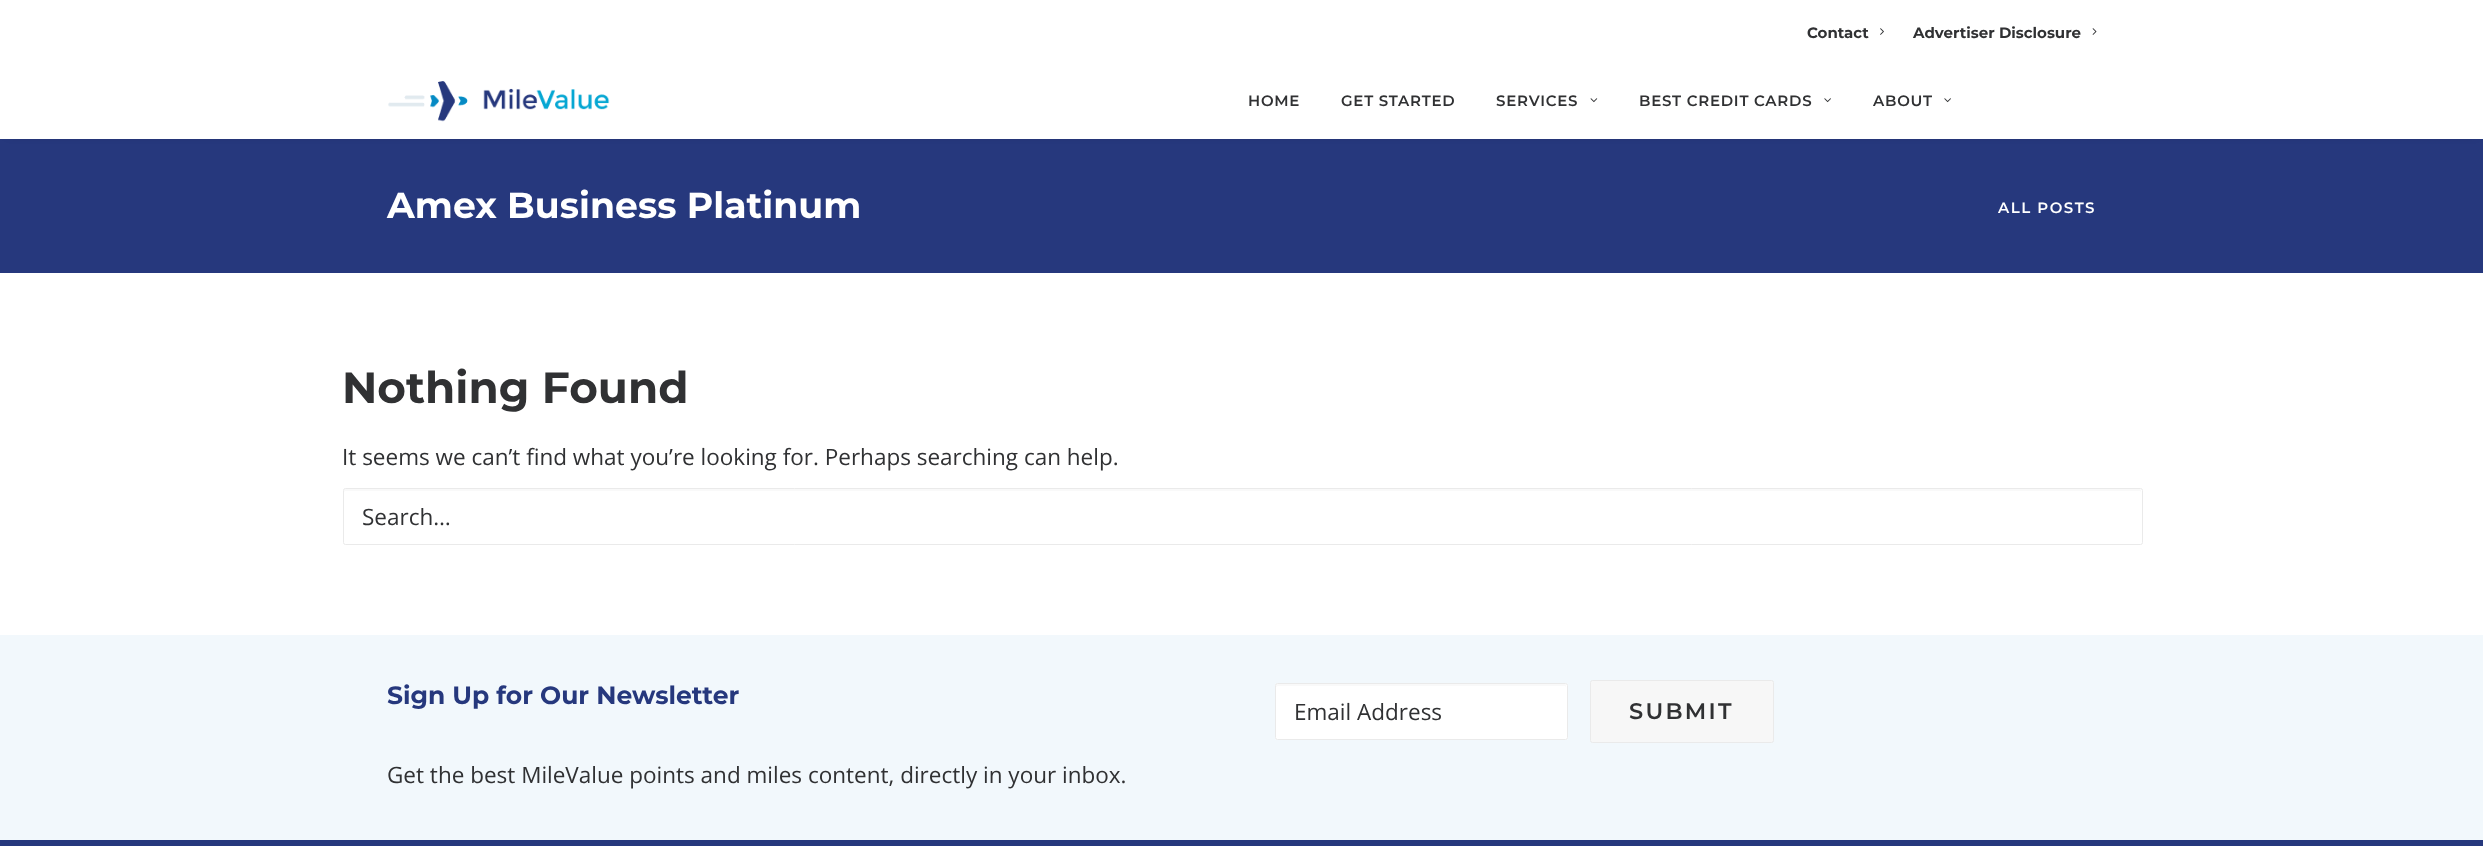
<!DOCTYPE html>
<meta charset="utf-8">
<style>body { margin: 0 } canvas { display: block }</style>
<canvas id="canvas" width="2483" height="846"></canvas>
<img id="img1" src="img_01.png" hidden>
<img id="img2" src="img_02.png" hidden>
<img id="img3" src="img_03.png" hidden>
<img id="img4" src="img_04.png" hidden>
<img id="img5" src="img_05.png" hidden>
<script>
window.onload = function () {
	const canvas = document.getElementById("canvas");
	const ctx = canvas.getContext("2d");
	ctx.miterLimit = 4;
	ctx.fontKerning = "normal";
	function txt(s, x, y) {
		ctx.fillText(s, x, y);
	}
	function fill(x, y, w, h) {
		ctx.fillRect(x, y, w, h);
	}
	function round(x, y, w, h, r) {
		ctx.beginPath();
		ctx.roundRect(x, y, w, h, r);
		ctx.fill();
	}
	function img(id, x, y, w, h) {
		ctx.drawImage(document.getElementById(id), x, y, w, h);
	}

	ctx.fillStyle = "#26387D";
	fill(0, 0, 2483, 846);
	ctx.fillStyle = "rgba(0, 0, 0, 0.6)";
	ctx.filter = "blur(6px)";
	ctx.beginPath();
	ctx.rect(10, 81, 2465, 50);
	ctx.fill();
	ctx.filter = "none";
	ctx.fillStyle = "#FFFFFF";
	fill(0, 0, 2483, 139);
	img("img1", 1880, 28, 4, 7);
	img("img2", 2092, 28, 5, 7);
	img("img3", 388, 81, 222, 41);
	img("img4", 1590, 98, 8, 5);
	img("img5", 1824, 98, 7, 5);
	img("img5", 1944, 98, 7, 5);
	fill(0, 273, 2483, 362);
	ctx.fillStyle = "#F9F9F9";
	ctx.beginPath();
	ctx.moveTo(345, 491);
	ctx.lineTo(2140, 491);
	ctx.lineTo(2141, 492);
	ctx.lineTo(2141, 490);
	ctx.lineTo(2140, 489);
	ctx.lineTo(345, 489);
	ctx.lineTo(344, 490);
	ctx.lineTo(344, 492);
	ctx.closePath();
	ctx.fill();
	ctx.beginPath();
	ctx.roundRect(343.5, 488.5, 1799, 56, 2);
	ctx.strokeStyle = "#EAEAEA";
	ctx.stroke();
	ctx.fillStyle = "#F2F8FC";
	fill(0, 635, 2483, 205);
	ctx.fillStyle = "#FFFFFF";
	round(1275, 683, 293, 57, 2.5);
	ctx.fillStyle = "#F9F9F9";
	ctx.beginPath();
	ctx.moveTo(1278, 686);
	ctx.lineTo(1565, 686);
	ctx.lineTo(1566, 687);
	ctx.lineTo(1566, 688);
	ctx.bezierCurveTo(1566, 687, 1567, 684, 1565, 684);
	ctx.lineTo(1277, 684);
	ctx.bezierCurveTo(1275, 684, 1276, 687, 1276, 688);
	ctx.bezierCurveTo(1276, 687, 1277, 686, 1278, 686);
	ctx.closePath();
	ctx.fill();
	ctx.beginPath();
	ctx.roundRect(1275.5, 683.5, 292, 56, 2);
	ctx.stroke();
	ctx.fillStyle = "#F7F7F7";
	ctx.beginPath();
	ctx.roundRect(1590.5, 680.5, 183, 62, 2);
	ctx.fill();
	ctx.stroke();
	ctx.font = "bold 15px Montserrat";
	ctx.fillStyle = "#303133";
	txt("Contact", 1807, 38);
	txt("Advertiser Disclosure", 1913, 38);
	ctx.letterSpacing = "0.75px";
	ctx.font = "600 15px Montserrat";
	txt("HOME", 1248, 106);
	txt("GET STARTED", 1341, 106);
	txt("SERVICES", 1496, 106);
	txt("BEST CREDIT CARDS", 1639, 106);
	txt("ABOUT", 1873, 106);
	ctx.letterSpacing = "0px";
	ctx.font = "bold 36.25px Montserrat";
	ctx.fillStyle = "#FFFFFF";
	txt("Amex Business Platinum", 387, 218);
	ctx.letterSpacing = "1.5px";
	ctx.font = "600 15px Montserrat";
	txt("ALL POSTS", 1998, 213);
	ctx.letterSpacing = "0px";
	ctx.font = "bold 43.75px Montserrat";
	ctx.fillStyle = "#303133";
	txt("Nothing Found", 342, 403);
	ctx.font = "22.5px Open Sans";
	txt("It seems we can’t find what you’re looking for. Perhaps searching can help.", 342, 465);
	txt("Search…", 362, 525);
	ctx.font = "bold 25px Montserrat";
	ctx.fillStyle = "#26387D";
	txt("Sign Up for Our Newsletter", 387, 704);
	ctx.font = "22.5px Open Sans";
	ctx.fillStyle = "#303133";
	txt("Get the best MileValue points and miles content, directly in your inbox.", 387, 783);
	txt("Email Address", 1294, 720);
	ctx.letterSpacing = "2.25px";
	ctx.font = "600 22.5px Montserrat";
	txt("SUBMIT", 1629, 719);
};
</script>
